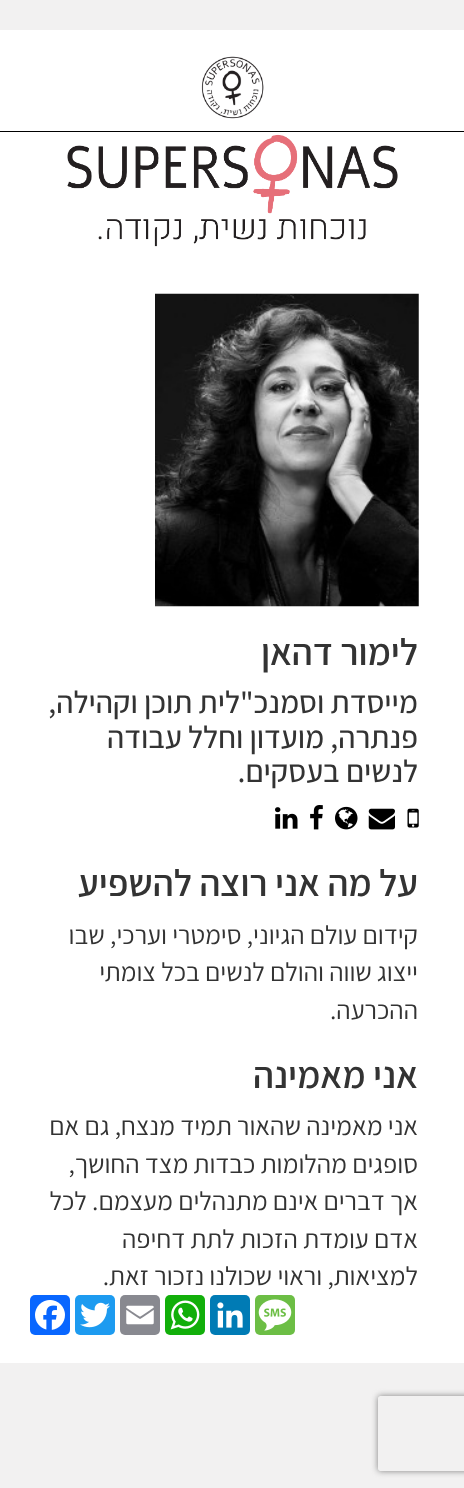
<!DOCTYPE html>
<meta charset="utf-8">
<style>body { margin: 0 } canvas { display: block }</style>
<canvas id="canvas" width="464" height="1488"></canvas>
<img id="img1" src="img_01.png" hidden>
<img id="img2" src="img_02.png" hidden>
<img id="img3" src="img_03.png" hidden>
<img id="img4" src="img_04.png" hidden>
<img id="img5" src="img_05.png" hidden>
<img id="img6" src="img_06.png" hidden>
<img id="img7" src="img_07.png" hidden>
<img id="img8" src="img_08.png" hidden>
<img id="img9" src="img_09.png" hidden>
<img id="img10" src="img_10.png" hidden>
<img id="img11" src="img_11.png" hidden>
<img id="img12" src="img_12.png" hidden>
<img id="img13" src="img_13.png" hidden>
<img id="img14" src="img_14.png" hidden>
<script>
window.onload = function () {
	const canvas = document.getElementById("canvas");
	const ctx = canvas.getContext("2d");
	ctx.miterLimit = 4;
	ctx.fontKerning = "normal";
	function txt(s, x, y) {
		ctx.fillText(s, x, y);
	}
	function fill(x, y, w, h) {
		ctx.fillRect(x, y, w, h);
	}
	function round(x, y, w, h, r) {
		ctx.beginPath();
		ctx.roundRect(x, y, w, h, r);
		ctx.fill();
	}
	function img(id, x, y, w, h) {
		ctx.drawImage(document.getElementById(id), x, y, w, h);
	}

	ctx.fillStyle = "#F2F1F1";
	fill(0, 0, 464, 1488);
	ctx.fillStyle = "#FFFFFF";
	fill(0, 30, 464, 1333);
	ctx.fillStyle = "#000000";
	fill(0, 131, 464, 1);
	img("img1", 201, 56, 63, 63);
	img("img2", 67, 134, 331, 113);
	img("img3", 155, 293, 264, 314);
	img("img4", 407, 808, 12, 20);
	img("img5", 368, 808, 27, 22);
	img("img6", 335, 806, 23, 24);
	img("img7", 310, 805, 13, 25);
	img("img8", 275, 807, 23, 22);
	ctx.fillStyle = "#6CBE45";
	round(255, 1295, 40, 40, 5);
	img("img9", 258, 1299, 34, 32);
	ctx.fillStyle = "#007BB5";
	round(210, 1295, 40, 40, 5);
	img("img10", 217, 1302, 26, 26);
	ctx.fillStyle = "#12AF0A";
	round(165, 1295, 40, 40, 5);
	img("img11", 170, 1300, 30, 30);
	ctx.fillStyle = "#888990";
	round(120, 1295, 40, 40, 5);
	img("img12", 126, 1305, 28, 20);
	ctx.fillStyle = "#1D9BF0";
	round(75, 1295, 40, 40, 5);
	img("img13", 80, 1302, 30, 26);
	ctx.fillStyle = "#0866FF";
	round(30, 1295, 40, 40, 5);
	img("img14", 35, 1300, 30, 30);
	ctx.save();
	ctx.beginPath();
	ctx.moveTo(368, 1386);
	ctx.lineTo(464, 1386);
	ctx.lineTo(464, 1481);
	ctx.lineTo(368, 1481);
	ctx.closePath();
	ctx.moveTo(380.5, 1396);
	ctx.lineTo(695.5, 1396);
	ctx.bezierCurveTo(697, 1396, 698, 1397, 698, 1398.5);
	ctx.lineTo(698, 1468.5);
	ctx.bezierCurveTo(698, 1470, 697, 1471, 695.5, 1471);
	ctx.lineTo(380.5, 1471);
	ctx.bezierCurveTo(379, 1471, 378, 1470, 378, 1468.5);
	ctx.lineTo(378, 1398.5);
	ctx.bezierCurveTo(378, 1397, 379, 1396, 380.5, 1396);
	ctx.closePath();
	ctx.clip("evenodd");
	ctx.fillStyle = "#808080";
	ctx.filter = "blur(3px)";
	ctx.beginPath();
	ctx.roundRect(378, 1396, 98, 75, 2.5);
	ctx.fill();
	ctx.filter = "none";
	ctx.restore();
	ctx.direction = "rtl";
	ctx.font = "600 37.5px Assistant";
	ctx.fillStyle = "#333333";
	txt("לימור דהאן", 418, 665);
	ctx.font = "500 31.25px Assistant";
	txt("מייסדת וסמנכ\"לית תוכן וקהילה,", 418, 713);
	txt("פנתרה, מועדון וחלל עבודה", 418, 748);
	txt("לנשים בעסקים.", 418, 782);
	ctx.font = "600 37.5px Assistant";
	txt("על מה אני רוצה להשפיע", 418, 896);
	ctx.font = "26.25px Assistant";
	txt("קידום עולם הגיוני, סימטרי וערכי, שבו", 418, 944);
	txt("ייצוג שווה והולם לנשים בכל צומתי", 418, 981);
	txt("ההכרעה.", 418, 1019);
	ctx.font = "600 37.5px Assistant";
	txt("אני מאמינה", 418, 1088);
	ctx.font = "26.25px Assistant";
	txt("אני מאמינה שהאור תמיד מנצח, גם אם", 418, 1135);
	txt("סופגים מהלומות כבדות מצד החושך,", 418, 1173);
	txt("אך דברים אינם מתנהלים מעצמם. לכל", 418, 1210);
	txt("אדם עומדת הזכות לתת דחיפה", 418, 1248);
	txt("למציאות, וראוי שכולנו נזכור זאת.", 418, 1285);
};
</script>
